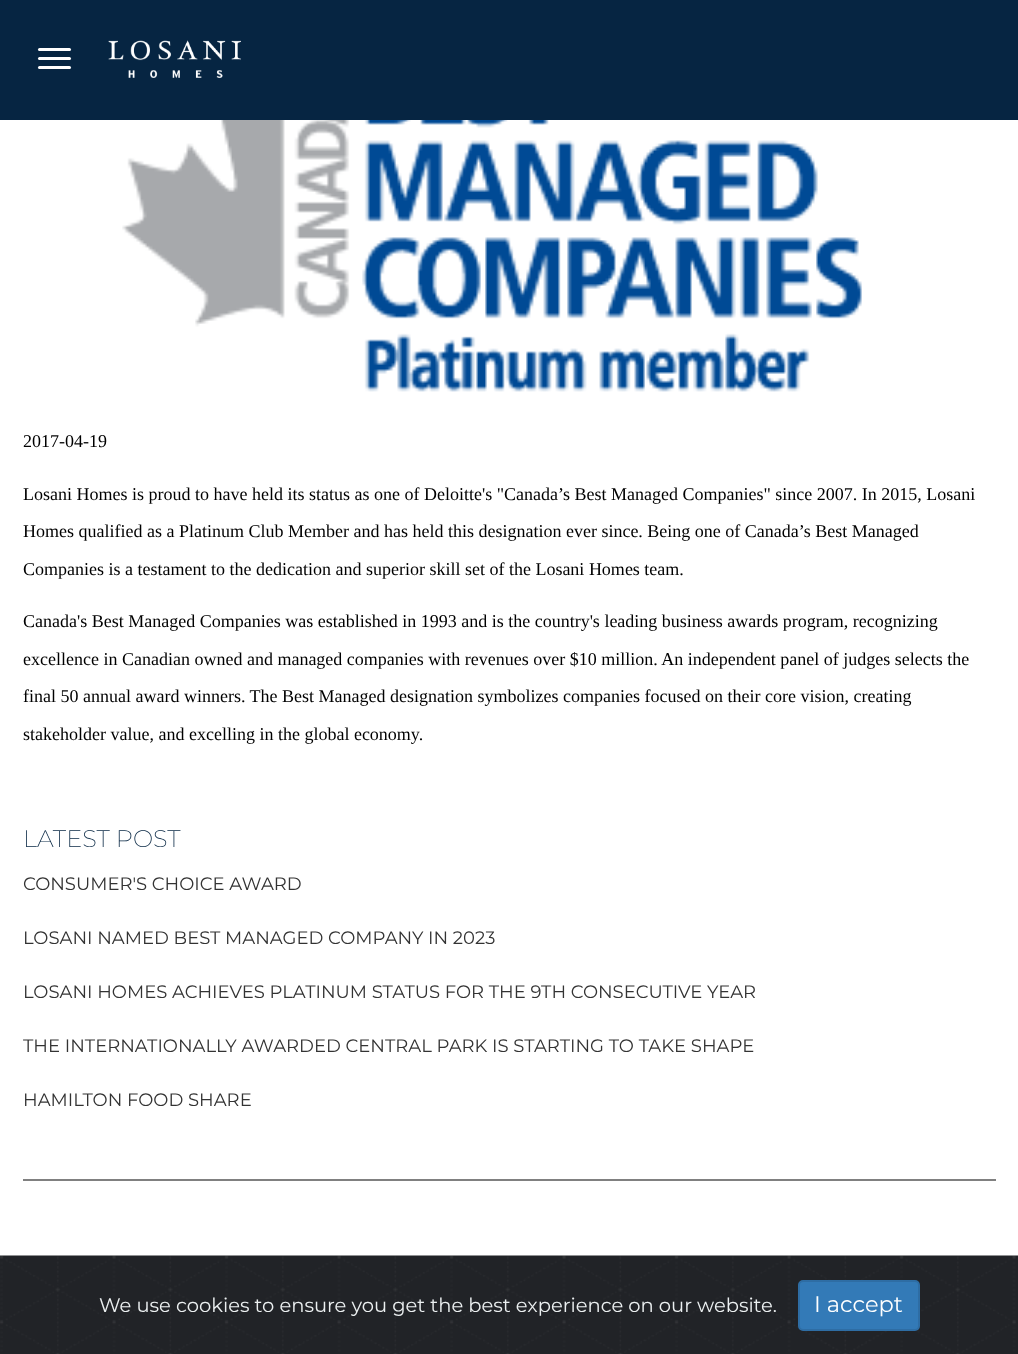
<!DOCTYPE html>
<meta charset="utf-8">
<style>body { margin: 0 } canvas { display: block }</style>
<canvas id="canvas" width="1018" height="1354"></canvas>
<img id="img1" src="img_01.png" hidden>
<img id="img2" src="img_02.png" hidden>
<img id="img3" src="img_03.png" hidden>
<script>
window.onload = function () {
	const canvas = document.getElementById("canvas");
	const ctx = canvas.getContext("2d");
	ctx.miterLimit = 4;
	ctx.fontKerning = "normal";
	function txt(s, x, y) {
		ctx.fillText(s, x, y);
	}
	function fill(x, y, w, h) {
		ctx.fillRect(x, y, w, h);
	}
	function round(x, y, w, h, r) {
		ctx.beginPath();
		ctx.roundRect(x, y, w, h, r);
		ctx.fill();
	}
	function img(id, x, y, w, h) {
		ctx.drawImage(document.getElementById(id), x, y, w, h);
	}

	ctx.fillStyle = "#FFFFFF";
	fill(0, 0, 1018, 1354);
	ctx.fillStyle = "#062542";
	fill(0, 0, 1018, 120);
	ctx.fillStyle = "#FFFFFF";
	round(38, 48, 33, 3, 1.5);
	round(38, 57, 33, 3, 1.5);
	round(38, 66, 33, 3, 1.5);
	img("img1", 108, 40, 133, 38);
	img("img2", 122, 120, 740, 272);
	ctx.fillStyle = "#808080";
	fill(23, 1179, 973, 2);
	img("img3", 0, 1255, 1018, 99);
	ctx.fillStyle = "#337AB7";
	ctx.beginPath();
	ctx.roundRect(799, 1281, 120, 49, 4);
	ctx.fill();
	ctx.strokeStyle = "#2E6DA4";
	ctx.lineWidth = 2;
	ctx.stroke();
	ctx.font = "18px Liberation Serif";
	ctx.fillStyle = "#000000";
	txt("2017-04-19", 23, 447);
	txt("Losani Homes is proud to have held its status as one of Deloitte's \"Canada’s Best Managed Companies\" since 2007. In 2015, Losani", 23, 500);
	txt("Homes qualified as a Platinum Club Member and has held this designation ever since. Being one of Canada’s Best Managed", 23, 537);
	txt("Companies is a testament to the dedication and superior skill set of the Losani Homes team.", 23, 575);
	txt("Canada's Best Managed Companies was established in 1993 and is the country's leading business awards program, recognizing", 23, 627);
	txt("excellence in Canadian owned and managed companies with revenues over $10 million. An independent panel of judges selects the", 23, 665);
	txt("final 50 annual award winners. The Best Managed designation symbolizes companies focused on their core vision, creating", 23, 702);
	txt("stakeholder value, and excelling in the global economy.", 23, 740);
	ctx.font = "200 24px Montserrat";
	ctx.fillStyle = "#062542";
	txt("LATEST POST", 23, 847);
	ctx.font = "18px Montserrat";
	ctx.fillStyle = "#333333";
	txt("CONSUMER'S CHOICE AWARD", 23, 890);
	txt("LOSANI NAMED BEST MANAGED COMPANY IN 2023", 23, 944);
	txt("LOSANI HOMES ACHIEVES PLATINUM STATUS FOR THE 9TH CONSECUTIVE YEAR", 23, 998);
	txt("THE INTERNATIONALLY AWARDED CENTRAL PARK IS STARTING TO TAKE SHAPE", 23, 1052);
	txt("HAMILTON FOOD SHARE", 23, 1106);
	ctx.font = "19.5px Montserrat";
	ctx.fillStyle = "#ECF0F1";
	txt("We use cookies to ensure you get the best experience on our website.", 99, 1312);
	ctx.font = "22.5px Montserrat";
	ctx.fillStyle = "#FFFFFF";
	txt("I accept", 814, 1312);
};
</script>
